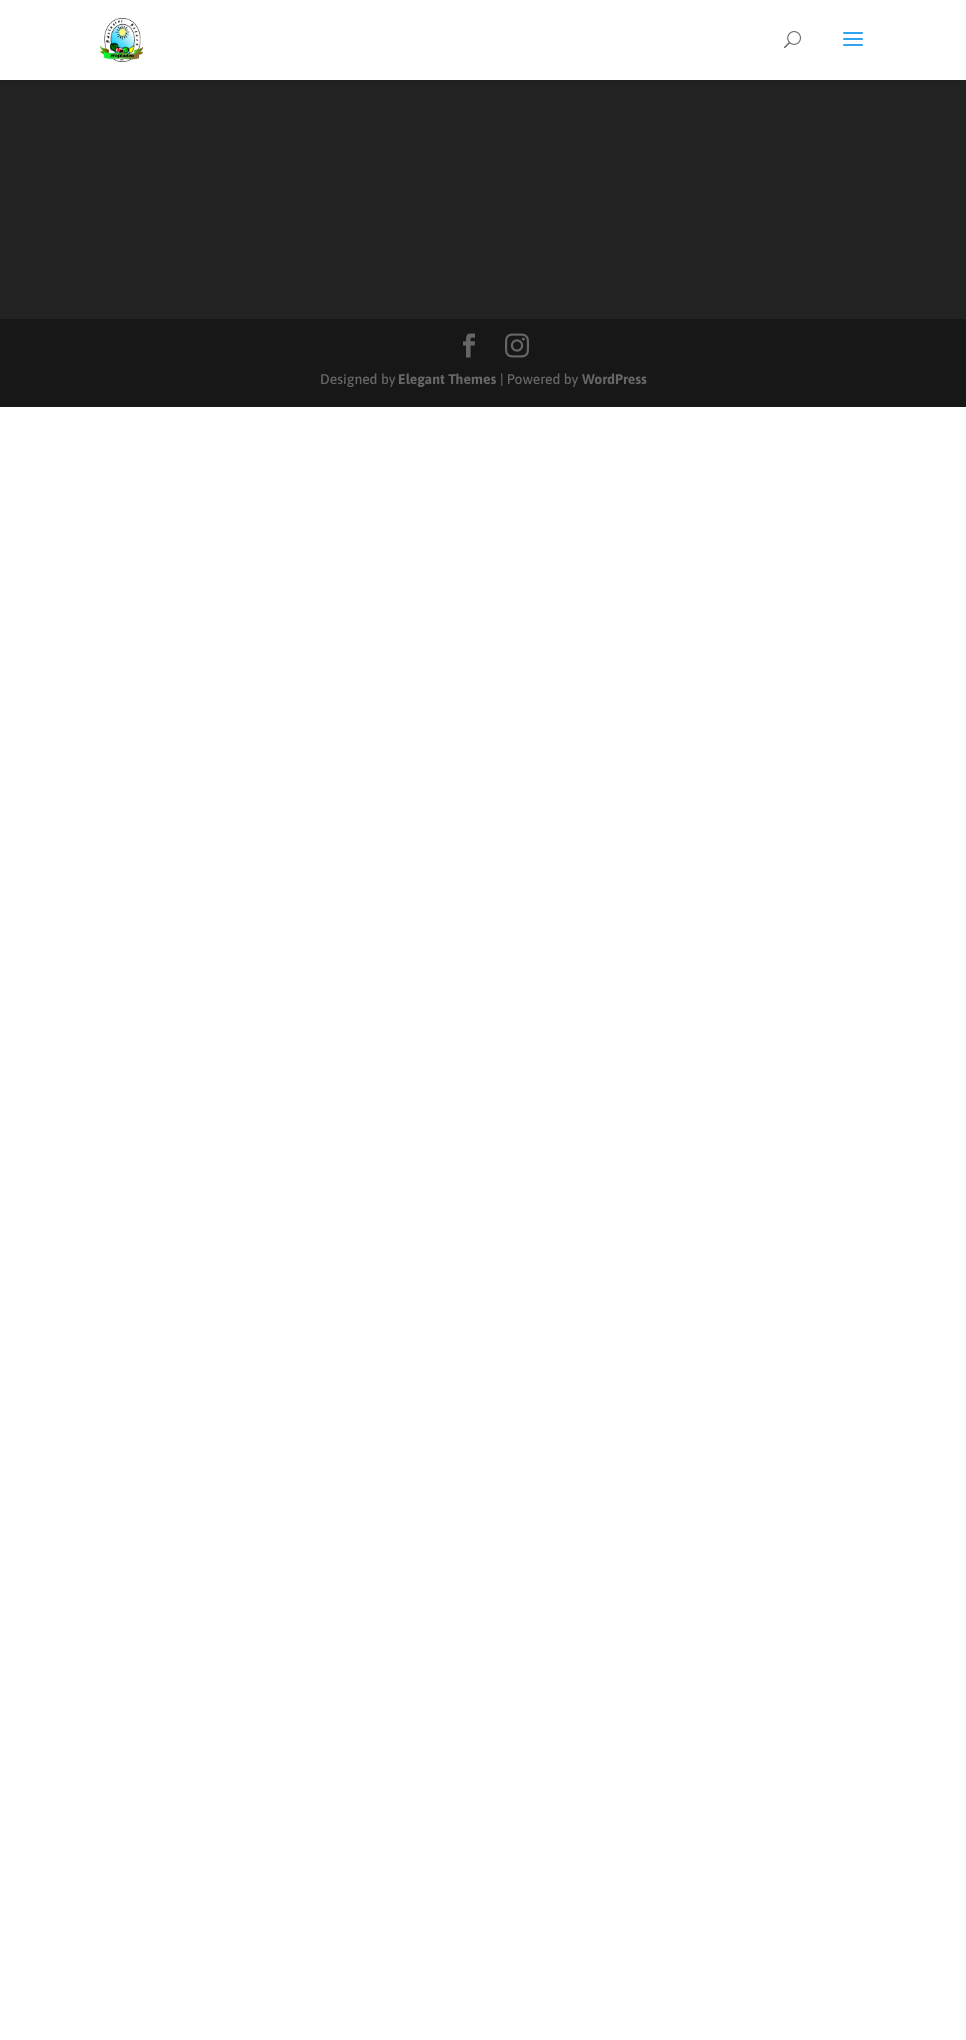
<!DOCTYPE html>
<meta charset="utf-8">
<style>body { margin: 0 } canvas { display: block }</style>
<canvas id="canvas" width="966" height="2040"></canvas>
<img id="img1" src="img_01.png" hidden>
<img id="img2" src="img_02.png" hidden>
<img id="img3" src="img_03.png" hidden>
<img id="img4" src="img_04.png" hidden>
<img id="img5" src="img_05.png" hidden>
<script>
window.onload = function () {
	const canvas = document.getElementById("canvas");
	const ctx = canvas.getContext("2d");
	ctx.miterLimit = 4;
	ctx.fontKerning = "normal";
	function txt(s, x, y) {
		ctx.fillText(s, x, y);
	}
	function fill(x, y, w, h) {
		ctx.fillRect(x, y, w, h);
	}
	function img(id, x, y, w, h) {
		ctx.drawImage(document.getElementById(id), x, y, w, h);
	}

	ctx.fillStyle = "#FFFFFF";
	fill(0, 0, 966, 2040);
	ctx.fillStyle = "#1F1F1F";
	fill(0, 80, 966, 1);
	img("img1", 100, 18, 43, 44);
	img("img2", 784, 31, 17, 18);
	img("img3", 843, 32, 20, 14);
	ctx.fillStyle = "#222222";
	fill(0, 81, 966, 238);
	ctx.fillStyle = "#171717";
	fill(0, 319, 966, 88);
	img("img4", 463, 333, 12, 25);
	img("img5", 505, 333, 24, 25);
	ctx.font = "500 14px Asap";
	ctx.fillStyle = "#666666";
	txt("Designed by", 320, 384);
	ctx.font = "bold 14px Asap";
	txt("Elegant Themes", 398, 384);
	ctx.font = "500 14px Asap";
	txt("| Powered by", 500, 384);
	ctx.font = "bold 14px Asap";
	txt("WordPress", 582, 384);
};
</script>
